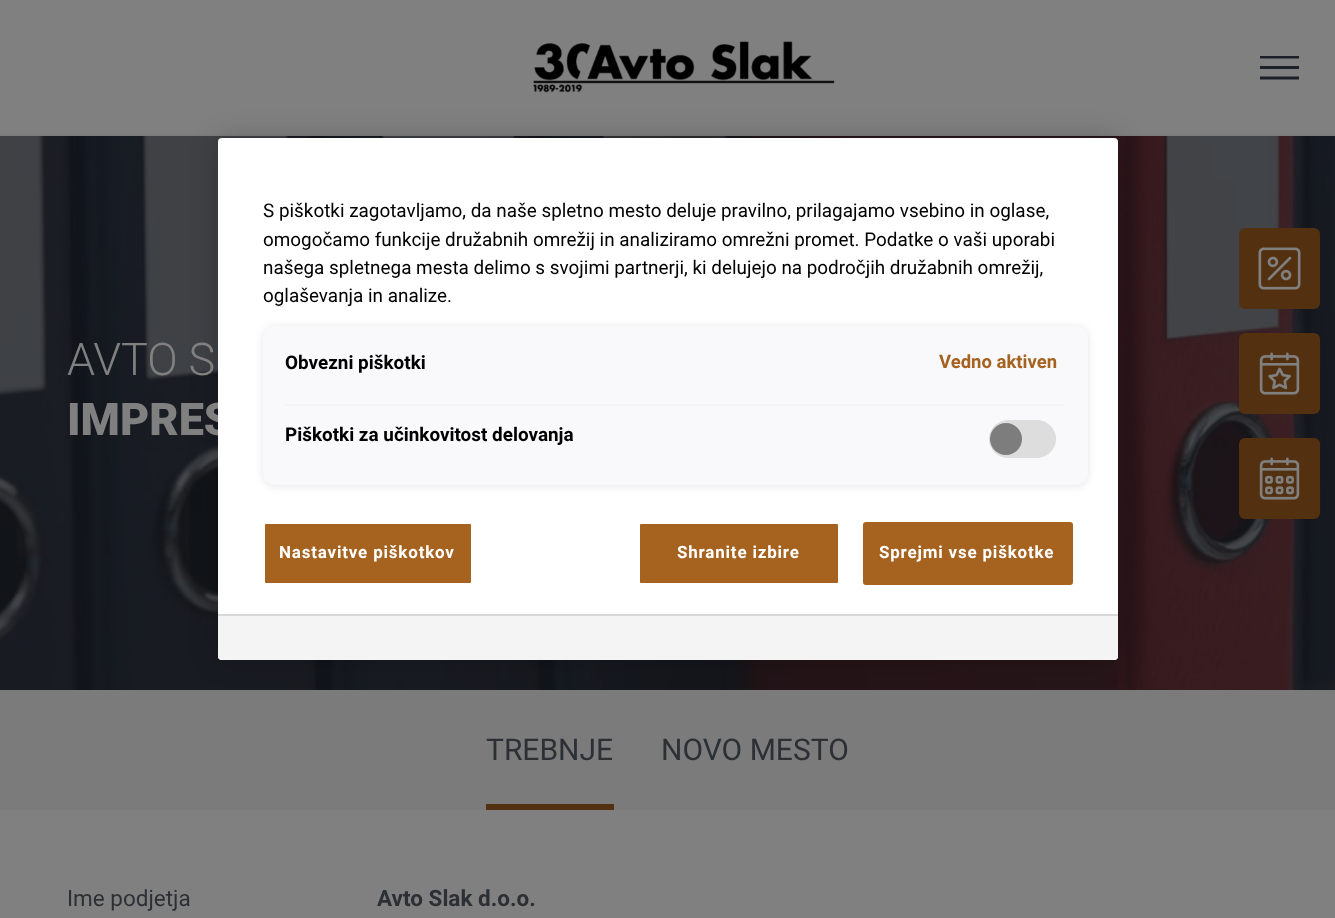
<!DOCTYPE html>
<meta charset="utf-8">
<style>body { margin: 0 } canvas { display: block }</style>
<canvas id="canvas" width="1335" height="918"></canvas>
<img id="img1" src="img_02.png" hidden>
<img id="img2" src="img_01.png" hidden>
<img id="img3" src="img_03.png" hidden>
<img id="img4" src="img_04.png" hidden>
<img id="img5" src="img_05.png" hidden>
<script>
window.onload = function () {
	const canvas = document.getElementById("canvas");
	const ctx = canvas.getContext("2d");
	ctx.miterLimit = 4;
	ctx.fontKerning = "normal";
	function txt(s, x, y) {
		ctx.fillText(s, x, y);
	}
	function fill(x, y, w, h) {
		ctx.fillRect(x, y, w, h);
	}
	function round(x, y, w, h, r) {
		ctx.beginPath();
		ctx.roundRect(x, y, w, h, r);
		ctx.fill();
	}
	function img(id, x, y, w, h) {
		ctx.drawImage(document.getElementById(id), x, y, w, h);
	}

	ctx.fillStyle = "#808080";
	fill(0, 0, 1335, 918);
	ctx.fillStyle = "#7C7D7D";
	fill(0, 134, 1335, 2);
	img("img1", 0, 136, 1335, 554);
	ctx.fillStyle = "#7B7B7C";
	fill(0, 690, 1335, 120);
	ctx.fillStyle = "rgba(0, 0, 0, 0.2)";
	ctx.filter = "blur(13.5px)";
	ctx.beginPath();
	ctx.roundRect(218, 138, 900, 522, 4);
	ctx.fill();
	ctx.filter = "none";
	img("img2", 533, 41, 302, 52);
	ctx.save();
	ctx.beginPath();
	ctx.rect(1260, 56, 39, 24);
	ctx.clip();
	ctx.fillStyle = "#1D2127";
	ctx.beginPath();
	ctx.moveTo(1299, 76.5);
	ctx.lineTo(1299, 79.5);
	ctx.lineTo(1260, 79.5);
	ctx.lineTo(1260, 76.5);
	ctx.closePath();
	ctx.moveTo(1299, 66);
	ctx.lineTo(1299, 69);
	ctx.lineTo(1260, 69);
	ctx.lineTo(1260, 66);
	ctx.closePath();
	ctx.moveTo(1299, 55.5);
	ctx.lineTo(1299, 58.5);
	ctx.lineTo(1260, 58.5);
	ctx.lineTo(1260, 55.5);
	ctx.closePath();
	ctx.fill("evenodd");
	ctx.restore();
	ctx.fillStyle = "#533110";
	round(1239, 228, 81, 81, 6);
	img("img3", 1258, 247, 43, 43);
	round(1239, 333, 81, 81, 6);
	img("img4", 1259, 352, 41, 43);
	round(1239, 438, 81, 81, 6);
	img("img5", 1259, 457, 41, 43);
	fill(486, 804, 128, 6);
	ctx.font = "300 45px Roboto";
	ctx.fillStyle = "#808080";
	txt("AVTO S", 67, 375);
	ctx.font = "900 45px Roboto";
	txt("IMPRES", 67, 435);
	ctx.fillStyle = "#FFFFFF";
	round(218, 138, 900, 522, 4);
	ctx.fillStyle = "rgba(0, 0, 0, 0.1)";
	ctx.filter = "blur(4.5px)";
	ctx.beginPath();
	ctx.roundRect(263, 327, 825, 159, 12);
	ctx.fill();
	ctx.filter = "none";
	ctx.fillStyle = "#F9F9FC";
	round(263, 326, 825, 159, 12);
	ctx.fillStyle = "#F2F1F1";
	round(989, 420, 67, 38, 19);
	ctx.fillStyle = "#DDDDDD";
	ctx.beginPath();
	ctx.moveTo(1008, 420);
	ctx.lineTo(1037, 420);
	ctx.bezierCurveTo(1047, 420, 1056, 429, 1056, 439);
	ctx.bezierCurveTo(1056, 449, 1047, 458, 1037, 458);
	ctx.lineTo(1008, 458);
	ctx.bezierCurveTo(998, 458, 989, 449, 989, 439);
	ctx.bezierCurveTo(989, 429, 998, 420, 1008, 420);
	ctx.closePath();
	ctx.fill();
	ctx.fillStyle = "#7D7D7D";
	ctx.beginPath();
	ctx.arc(1006, 439, 16, 0, Math.PI * 2);
	ctx.fill();
	ctx.fillStyle = "#F4F4F4";
	ctx.beginPath();
	ctx.roundRect(218, 614, 900, 46, [0, 0, 4, 4]);
	ctx.fill();
	ctx.fillStyle = "#D8D8D8";
	fill(218, 614, 900, 2);
	ctx.fillStyle = "#A6621F";
	ctx.beginPath();
	ctx.roundRect(864, 523, 208, 61, 2);
	ctx.fill();
	ctx.strokeStyle = "#A6621F";
	ctx.lineWidth = 2;
	ctx.stroke();
	ctx.letterSpacing = "0.8px";
	ctx.font = "bold 17px Roboto";
	ctx.fillStyle = "#FFFFFF";
	txt("Sprejmi vse piškotke", 879, 558);
	ctx.fillStyle = "#A6621F";
	ctx.beginPath();
	ctx.roundRect(639, 523, 200, 61, 2);
	ctx.fill();
	ctx.strokeStyle = "#FFFFFF";
	ctx.stroke();
	ctx.fillStyle = "#FFFFFF";
	txt("Shranite izbire", 677, 558);
	ctx.fillStyle = "#A6621F";
	ctx.beginPath();
	ctx.roundRect(264, 523, 208, 61, 2);
	ctx.fill();
	ctx.stroke();
	ctx.fillStyle = "#FFFFFF";
	txt("Nastavitve piškotkov", 279, 558);
	ctx.letterSpacing = "0px";
	ctx.font = "bold 18.5px Roboto";
	ctx.fillStyle = "#A6621F";
	txt("Vedno aktiven", 939, 368);
	ctx.font = "bold 18.9px Roboto";
	ctx.fillStyle = "#000000";
	txt("Piškotki za učinkovitost delovanja", 285, 441);
	txt("Obvezni piškotki", 285, 369);
	ctx.fillStyle = "#F4F4F4";
	fill(285, 404, 780, 2);
	ctx.font = "18.9px Roboto";
	ctx.fillStyle = "#000000";
	txt("oglaševanja in analize.", 263, 302);
	txt("našega spletnega mesta delimo s svojimi partnerji, ki delujejo na področjih družabnih omrežij,", 263, 274);
	txt("omogočamo funkcije družabnih omrežij in analiziramo omrežni promet. Podatke o vaši uporabi", 263, 246);
	txt("S piškotki zagotavljamo, da naše spletno mesto deluje pravilno, prilagajamo vsebino in oglase,", 263, 217);
	ctx.font = "30px Roboto";
	ctx.fillStyle = "#2C3035";
	txt("TREBNJE", 486, 760);
	txt("NOVO MESTO", 661, 760);
	ctx.font = "22.5px Roboto";
	txt("Ime podjetja", 67, 906);
	ctx.font = "bold 22.5px Roboto";
	txt("Avto Slak d.o.o.", 377, 906);
};
</script>
